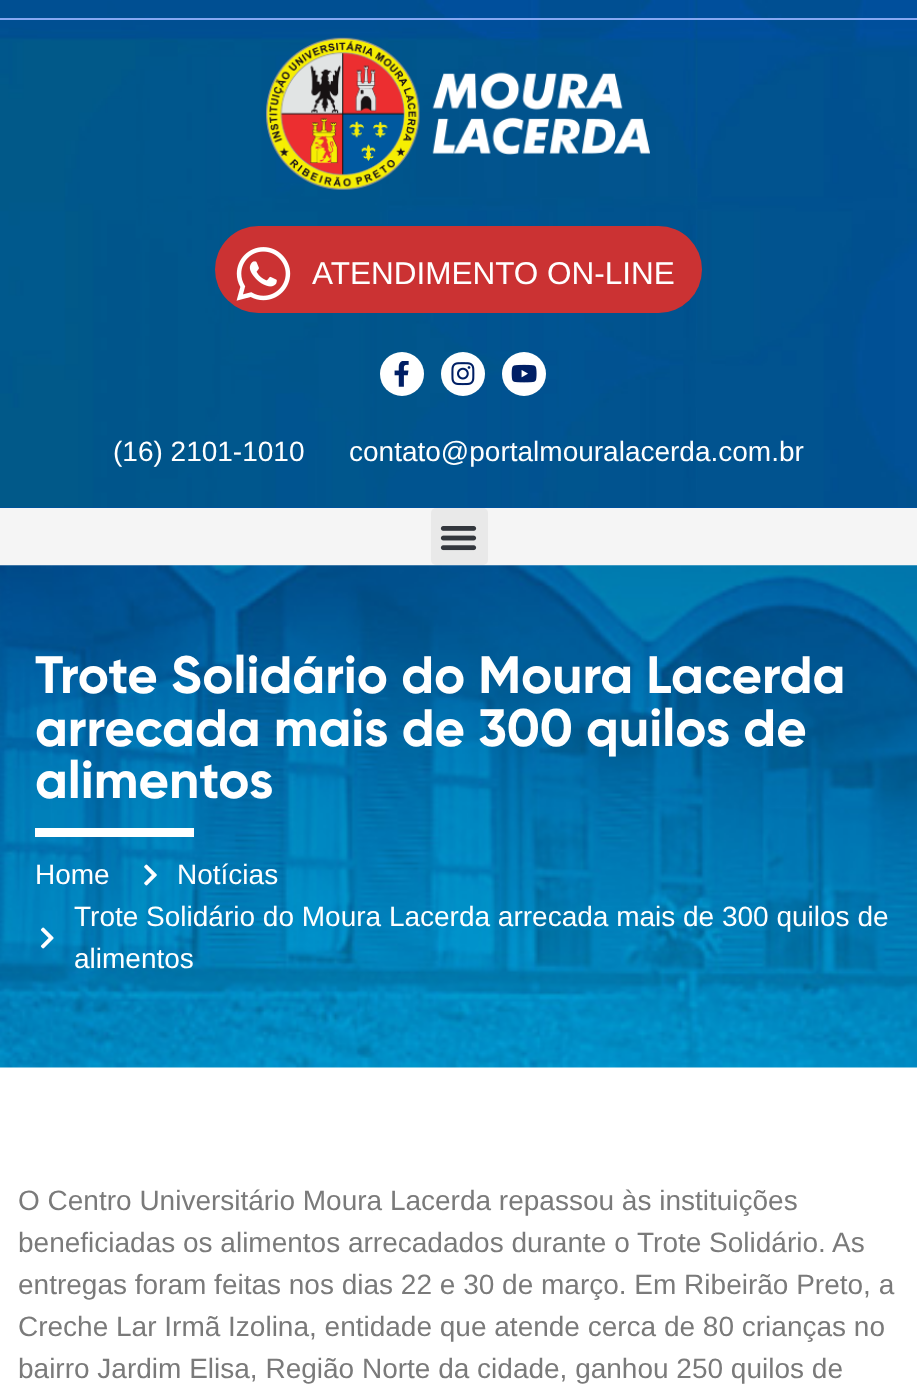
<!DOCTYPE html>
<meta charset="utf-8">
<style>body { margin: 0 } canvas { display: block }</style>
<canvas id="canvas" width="917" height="1386"></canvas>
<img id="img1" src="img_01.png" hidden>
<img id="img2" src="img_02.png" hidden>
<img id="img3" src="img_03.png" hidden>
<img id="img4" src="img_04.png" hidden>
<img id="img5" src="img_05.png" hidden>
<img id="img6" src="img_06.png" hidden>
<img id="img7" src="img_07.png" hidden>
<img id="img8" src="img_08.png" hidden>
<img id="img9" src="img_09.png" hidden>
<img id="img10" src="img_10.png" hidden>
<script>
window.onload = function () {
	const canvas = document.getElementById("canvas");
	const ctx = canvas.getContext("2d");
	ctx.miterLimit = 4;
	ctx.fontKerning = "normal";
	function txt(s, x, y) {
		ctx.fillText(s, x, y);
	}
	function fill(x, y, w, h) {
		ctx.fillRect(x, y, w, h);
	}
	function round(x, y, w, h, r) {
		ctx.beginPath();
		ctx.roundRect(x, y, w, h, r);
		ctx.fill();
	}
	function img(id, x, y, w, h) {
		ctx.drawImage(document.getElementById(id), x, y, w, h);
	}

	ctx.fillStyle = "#FFFFFF";
	fill(0, 0, 917, 1386);
	ctx.fillStyle = "#0050A8";
	fill(0, 507, 917, 1);
	img("img1", 0, 0, 917, 508);
	ctx.fillStyle = "#87A8F3";
	fill(0, 18, 917, 2);
	img("img2", 266, 37, 384, 153);
	ctx.fillStyle = "#CB3233";
	round(215, 226, 487, 87, 43.5);
	img("img3", 236, 247, 55, 54);
	ctx.fillStyle = "#FFFFFF";
	ctx.beginPath();
	ctx.arc(402, 374, 22, 0, Math.PI * 2);
	ctx.fill();
	img("img4", 394, 361, 15, 26);
	ctx.beginPath();
	ctx.arc(463, 374, 22, 0, Math.PI * 2);
	ctx.fill();
	img("img5", 451, 362, 24, 24);
	ctx.beginPath();
	ctx.arc(524, 374, 22, 0, Math.PI * 2);
	ctx.fill();
	img("img6", 511, 364, 26, 19);
	ctx.fillStyle = "#F5F5F5";
	fill(0, 508, 917, 57);
	ctx.fillStyle = "#E9E9E9";
	round(431, 508, 57, 57, 5);
	img("img7", 440, 526, 37, 25);
	img("img8", 0, 565, 917, 503);
	ctx.fillStyle = "#FFFFFF";
	fill(35, 828, 159, 9);
	img("img9", 144, 864, 13, 22);
	img("img10", 40, 927, 14, 22);
	ctx.font = "31.5px Liberation Sans";
	txt("ATENDIMENTO ON-LINE", 312, 284);
	ctx.font = "28px Liberation Sans";
	txt("(16) 2101-1010", 113, 461);
	txt("contato@portalmouralacerda.com.br", 349, 461);
	ctx.font = "bold 52.5px Gilroy";
	txt("Trote Solidário do Moura Lacerda", 35, 693);
	txt("arrecada mais de 300 quilos de", 35, 746);
	txt("alimentos", 35, 798);
	ctx.font = "28px Liberation Sans";
	txt("Home", 35, 884);
	txt("Notícias", 177, 884);
	txt("Trote Solidário do Moura Lacerda arrecada mais de 300 quilos de", 74, 926);
	txt("alimentos", 74, 968);
	ctx.fillStyle = "#7A7A7A";
	txt("O Centro Universitário Moura Lacerda repassou às instituições", 18, 1210);
	txt("beneficiadas os alimentos arrecadados durante o Trote Solidário. As", 18, 1252);
	txt("entregas foram feitas nos dias 22 e 30 de março. Em Ribeirão Preto, a", 18, 1294);
	txt("Creche Lar Irmã Izolina, entidade que atende cerca de 80 crianças no", 18, 1336);
	txt("bairro Jardim Elisa, Região Norte da cidade, ganhou 250 quilos de", 18, 1378);
};
</script>
